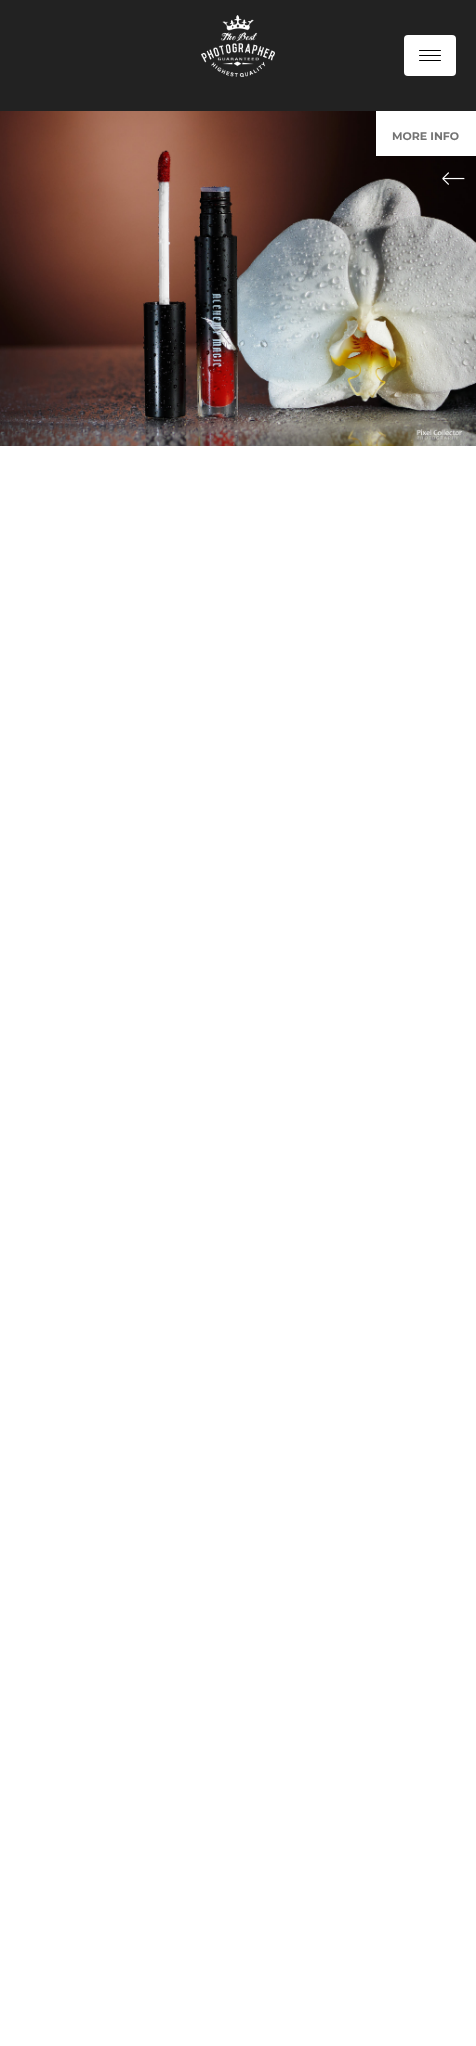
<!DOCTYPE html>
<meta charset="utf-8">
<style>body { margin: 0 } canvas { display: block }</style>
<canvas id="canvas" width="476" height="2046"></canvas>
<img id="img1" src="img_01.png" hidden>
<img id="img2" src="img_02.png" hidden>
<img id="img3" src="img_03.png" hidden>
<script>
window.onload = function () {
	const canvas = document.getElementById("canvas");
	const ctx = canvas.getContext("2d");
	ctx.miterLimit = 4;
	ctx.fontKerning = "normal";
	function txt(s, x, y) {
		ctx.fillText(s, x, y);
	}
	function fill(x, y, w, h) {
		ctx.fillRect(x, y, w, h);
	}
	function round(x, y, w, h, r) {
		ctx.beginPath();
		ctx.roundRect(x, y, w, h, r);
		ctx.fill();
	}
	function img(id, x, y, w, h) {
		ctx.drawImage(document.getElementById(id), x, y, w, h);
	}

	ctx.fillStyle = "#FFFFFF";
	fill(0, 0, 476, 2046);
	ctx.fillStyle = "#222222";
	fill(0, 0, 476, 111);
	img("img1", 201, 15, 74, 62);
	ctx.fillStyle = "#FFFFFF";
	round(404, 35, 52, 41, 4);
	ctx.fillStyle = "#000000";
	round(419, 50, 22, 1, 0.5);
	round(419, 55, 22, 1, 0.5);
	round(419, 60, 22, 1, 0.5);
	img("img2", 0, 111, 476, 335);
	ctx.fillStyle = "#FFFFFF";
	fill(376, 111, 100, 45);
	img("img3", 442, 172, 23, 13);
	ctx.font = "bold 11px Montserrat";
	ctx.fillStyle = "#737373";
	txt("MORE INFO", 392, 140);
};
</script>
